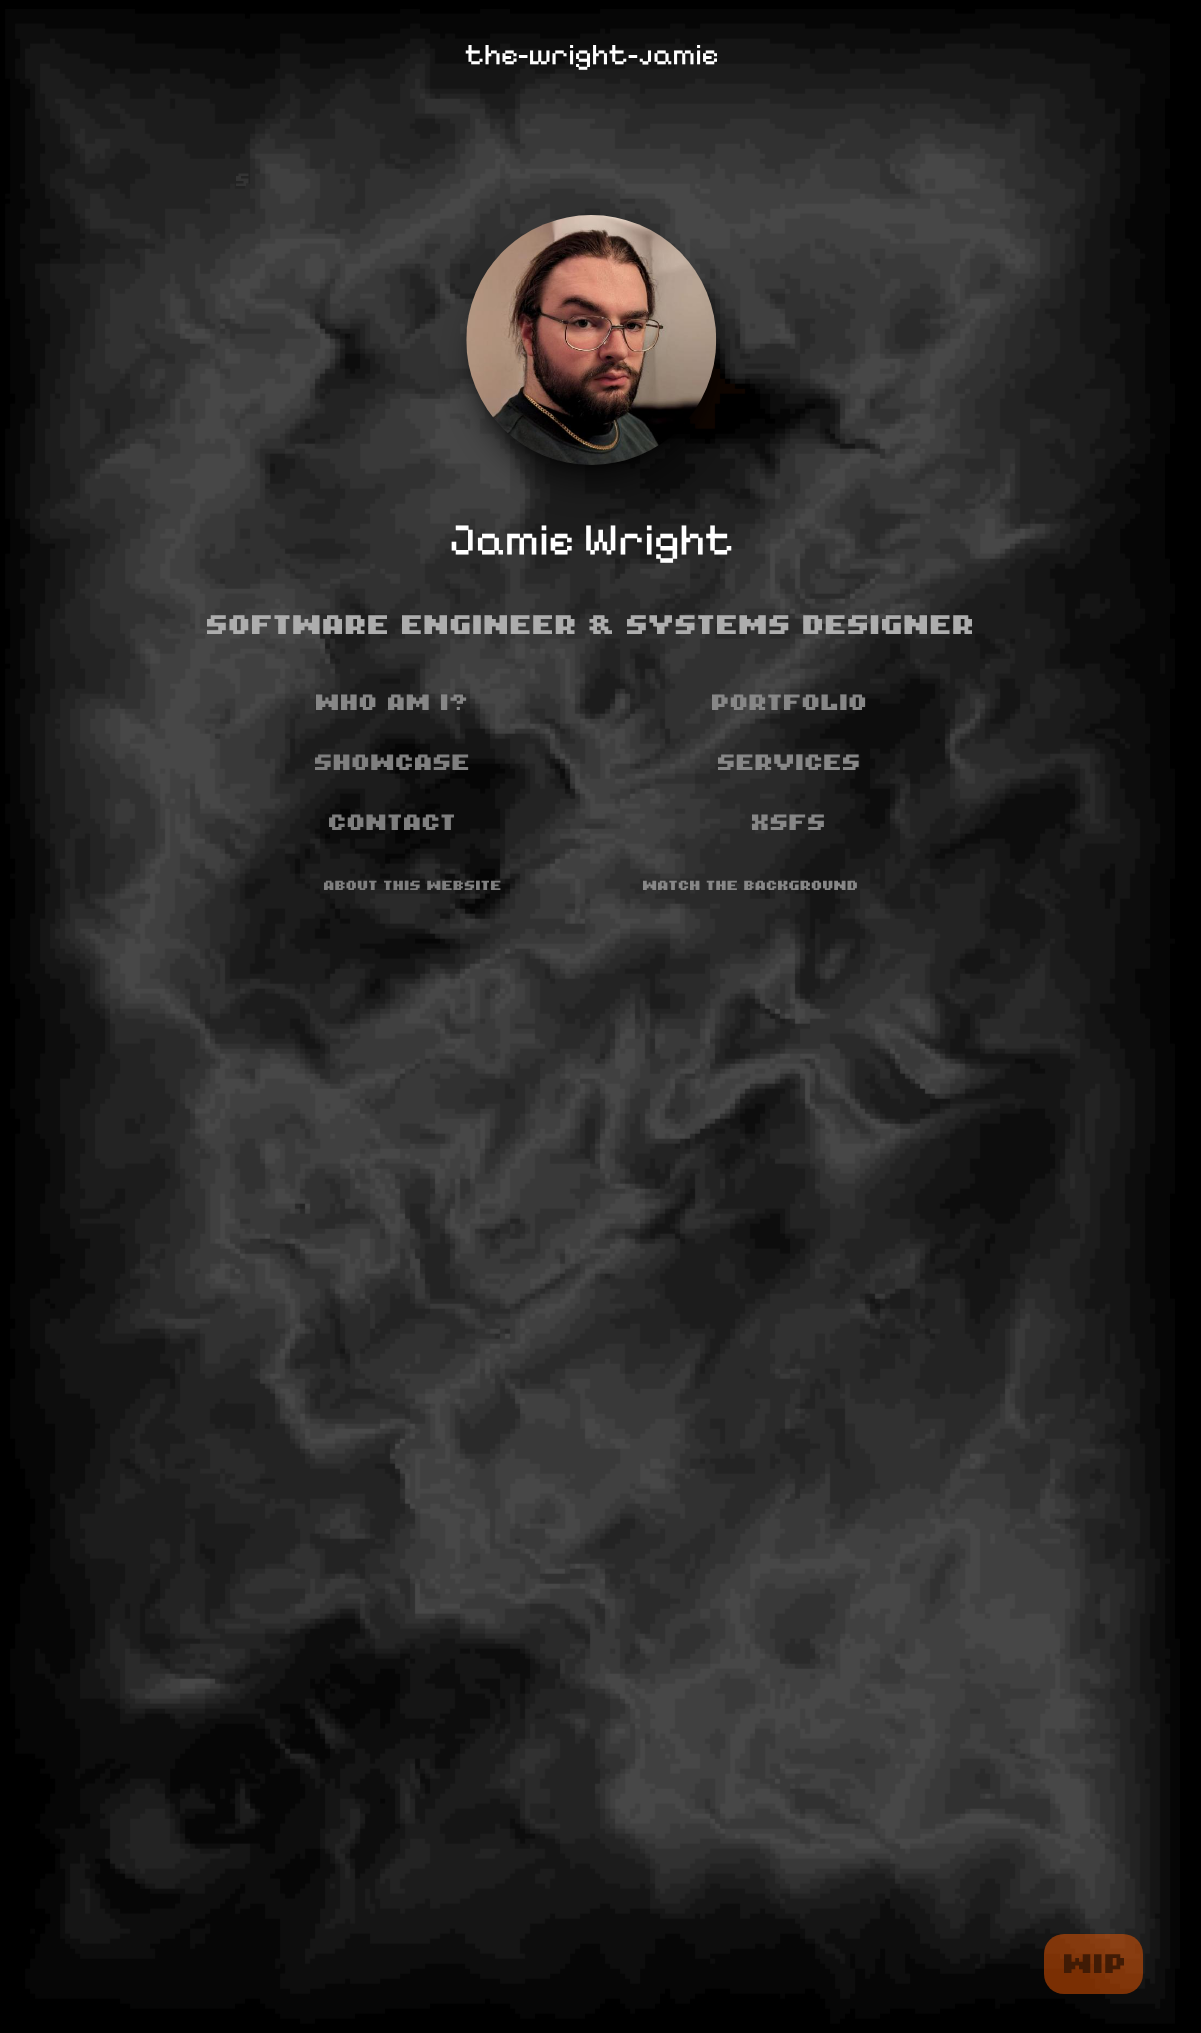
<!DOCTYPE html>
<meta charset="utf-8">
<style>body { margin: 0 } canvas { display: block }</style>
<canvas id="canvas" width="1201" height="2033"></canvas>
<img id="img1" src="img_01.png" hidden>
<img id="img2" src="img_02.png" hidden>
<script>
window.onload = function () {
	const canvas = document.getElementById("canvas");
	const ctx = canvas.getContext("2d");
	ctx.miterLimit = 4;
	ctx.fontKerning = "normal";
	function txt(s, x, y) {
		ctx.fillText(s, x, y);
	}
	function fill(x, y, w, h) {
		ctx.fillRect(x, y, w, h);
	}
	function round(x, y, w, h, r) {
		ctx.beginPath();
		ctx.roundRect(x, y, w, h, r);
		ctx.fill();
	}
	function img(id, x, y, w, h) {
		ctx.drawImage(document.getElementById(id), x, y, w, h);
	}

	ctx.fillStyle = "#000000";
	fill(0, 0, 1201, 2033);
	img("img1", 5, 9, 1175, 2015);
	ctx.fillStyle = "rgba(0, 0, 0, 0.5)";
	ctx.filter = "blur(6px)";
	ctx.beginPath();
	ctx.roundRect(474, 233, 235, 235, 117.5);
	ctx.fill();
	ctx.filter = "none";
	ctx.filter = "blur(15.5px)";
	ctx.beginPath();
	ctx.roundRect(473, 246, 237, 238, 118.5);
	ctx.fill();
	ctx.filter = "none";
	img("img2", 466, 215, 251, 250);
	ctx.fillStyle = "rgba(237, 87, 0, 0.5)";
	round(1044, 1934, 99, 60, 20);
	ctx.font = "30px Pixelify Sans";
	ctx.fillStyle = "#FFFFFF";
	txt("the-wright-jamie", 464, 64);
	ctx.font = "20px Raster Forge";
	ctx.fillStyle = "#343434";
	txt("S", 236, 186);
	ctx.font = "45px Pixelify Sans";
	ctx.fillStyle = "#FFFFFF";
	txt("Jamie Wright", 449, 554);
	ctx.font = "30px Raster Forge";
	ctx.fillStyle = "#ADADAD";
	txt("Software Engineer & Systems Designer", 207, 634);
	ctx.font = "25px Raster Forge";
	ctx.fillStyle = "#878787";
	txt("Who am I?", 316, 710);
	txt("Portfolio", 712, 710);
	ctx.fillStyle = "#7F7F7F";
	txt("Showcase", 315, 770);
	ctx.fillStyle = "#878787";
	txt("Services", 718, 770);
	ctx.fillStyle = "#7F7F7F";
	txt("Contact", 329, 830);
	ctx.fillStyle = "#878787";
	txt("XSFS", 752, 830);
	ctx.font = "15px Raster Forge";
	ctx.fillStyle = "#7F7F7F";
	txt("About this website", 324, 890);
	ctx.fillStyle = "#878787";
	txt("Watch the background", 643, 890);
	ctx.font = "30px Raster Forge";
	ctx.fillStyle = "#401B05";
	txt("WIP", 1064, 1973);
};
</script>
